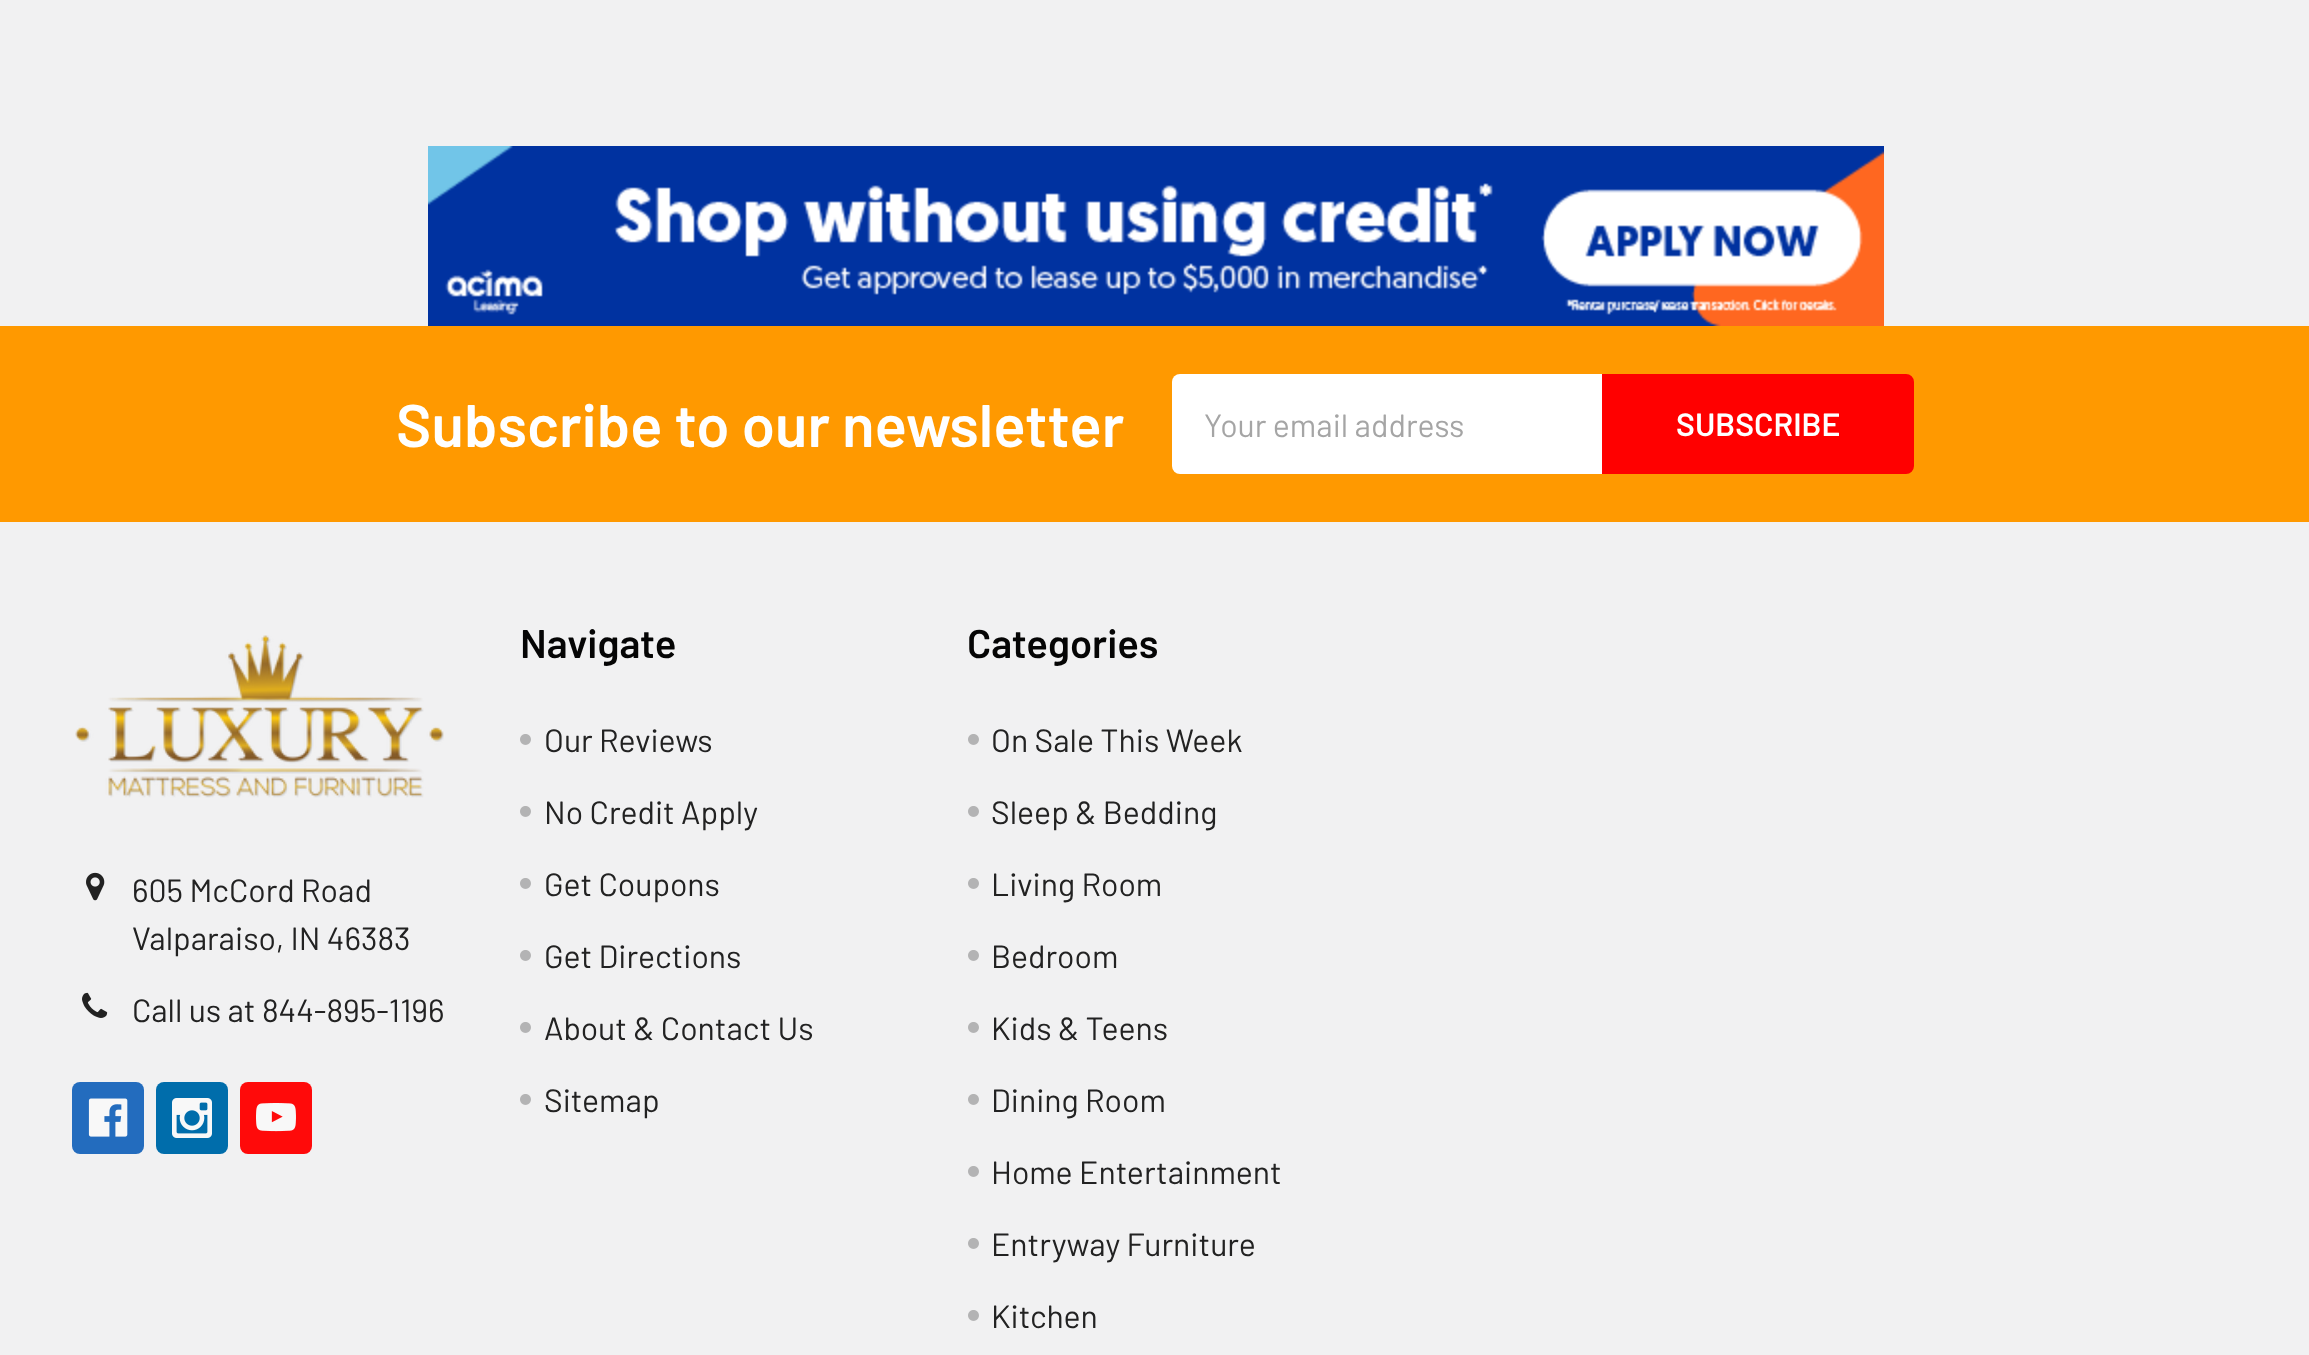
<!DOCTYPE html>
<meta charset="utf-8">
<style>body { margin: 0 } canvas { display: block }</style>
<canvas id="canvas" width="2309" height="1355"></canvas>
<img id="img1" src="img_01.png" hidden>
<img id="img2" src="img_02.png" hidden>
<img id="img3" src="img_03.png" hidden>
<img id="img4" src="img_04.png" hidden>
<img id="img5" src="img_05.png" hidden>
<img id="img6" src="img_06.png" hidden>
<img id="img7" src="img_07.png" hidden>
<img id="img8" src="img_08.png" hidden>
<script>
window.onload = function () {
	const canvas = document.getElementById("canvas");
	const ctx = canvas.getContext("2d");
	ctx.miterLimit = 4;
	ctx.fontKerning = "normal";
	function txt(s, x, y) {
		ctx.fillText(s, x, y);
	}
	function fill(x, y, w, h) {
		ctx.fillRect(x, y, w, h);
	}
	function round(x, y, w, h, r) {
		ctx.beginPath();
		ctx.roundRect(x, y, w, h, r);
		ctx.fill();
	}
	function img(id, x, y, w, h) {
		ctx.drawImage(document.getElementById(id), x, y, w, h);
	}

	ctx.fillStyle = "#F1F1F2";
	fill(0, 0, 2309, 1355);
	img("img1", 428, 146, 1456, 180);
	ctx.fillStyle = "#FF9900";
	fill(0, 326, 2309, 196);
	ctx.fillStyle = "#FFFFFF";
	ctx.beginPath();
	ctx.roundRect(1172, 374, 430, 100, [8, 0, 0, 8]);
	ctx.fill();
	ctx.fillStyle = "#FF0000";
	ctx.beginPath();
	ctx.roundRect(1603, 375, 310, 98, [0, 7, 7, 0]);
	ctx.fill();
	ctx.strokeStyle = "#FF0000";
	ctx.lineWidth = 2;
	ctx.stroke();
	img("img2", 75, 635, 369, 163);
	img("img3", 86, 872, 19, 29);
	img("img4", 82, 992, 26, 26);
	ctx.fillStyle = "#236CBE";
	round(72, 1082, 72, 72, 8);
	img("img5", 88, 1098, 40, 39);
	ctx.fillStyle = "#006DAB";
	round(156, 1082, 72, 72, 8);
	img("img6", 172, 1098, 40, 40);
	ctx.fillStyle = "#FF0A0A";
	round(240, 1082, 72, 72, 8);
	img("img7", 256, 1103, 40, 29);
	img("img8", 520, 734, 11, 11);
	img("img8", 520, 806, 11, 11);
	img("img8", 520, 878, 11, 11);
	img("img8", 520, 950, 11, 11);
	img("img8", 520, 1022, 11, 11);
	img("img8", 520, 1094, 11, 11);
	img("img8", 968, 734, 11, 11);
	img("img8", 968, 806, 11, 11);
	img("img8", 968, 878, 11, 11);
	img("img8", 968, 950, 11, 11);
	img("img8", 968, 1022, 11, 11);
	img("img8", 968, 1094, 11, 11);
	img("img8", 968, 1166, 11, 11);
	img("img8", 968, 1238, 11, 11);
	img("img8", 968, 1310, 11, 11);
	ctx.font = "600 60px Barlow";
	ctx.fillStyle = "#FFFFFF";
	txt("Subscribe to our newsletter", 396, 447);
	ctx.font = "32px Barlow";
	ctx.fillStyle = "#A5A5A5";
	txt("Your email address", 1204, 437);
	ctx.font = "600 32px Barlow";
	ctx.fillStyle = "#FFFFFF";
	txt("SUBSCRIBE", 1676, 436);
	ctx.font = "32px Barlow";
	ctx.fillStyle = "#222222";
	txt("605 McCord Road", 132, 902);
	txt("Valparaiso, IN 46383", 132, 950);
	txt("Call us at 844-895-1196", 132, 1022);
	ctx.font = "600 40px Barlow";
	ctx.fillStyle = "#050505";
	txt("Navigate", 520, 658);
	ctx.font = "32px Barlow";
	ctx.fillStyle = "#222222";
	txt("Our Reviews", 544, 752);
	txt("No Credit Apply", 544, 824);
	txt("Get Coupons", 544, 896);
	txt("Get Directions", 544, 968);
	txt("About & Contact Us", 544, 1040);
	txt("Sitemap", 544, 1112);
	ctx.font = "600 40px Barlow";
	ctx.fillStyle = "#050505";
	txt("Categories", 967, 658);
	ctx.font = "32px Barlow";
	ctx.fillStyle = "#222222";
	txt("On Sale This Week", 991, 752);
	txt("Sleep & Bedding", 991, 824);
	txt("Living Room", 991, 896);
	txt("Bedroom", 991, 968);
	txt("Kids & Teens", 991, 1040);
	txt("Dining Room", 991, 1112);
	txt("Home Entertainment", 991, 1184);
	txt("Entryway Furniture", 991, 1256);
	txt("Kitchen", 991, 1328);
};
</script>
